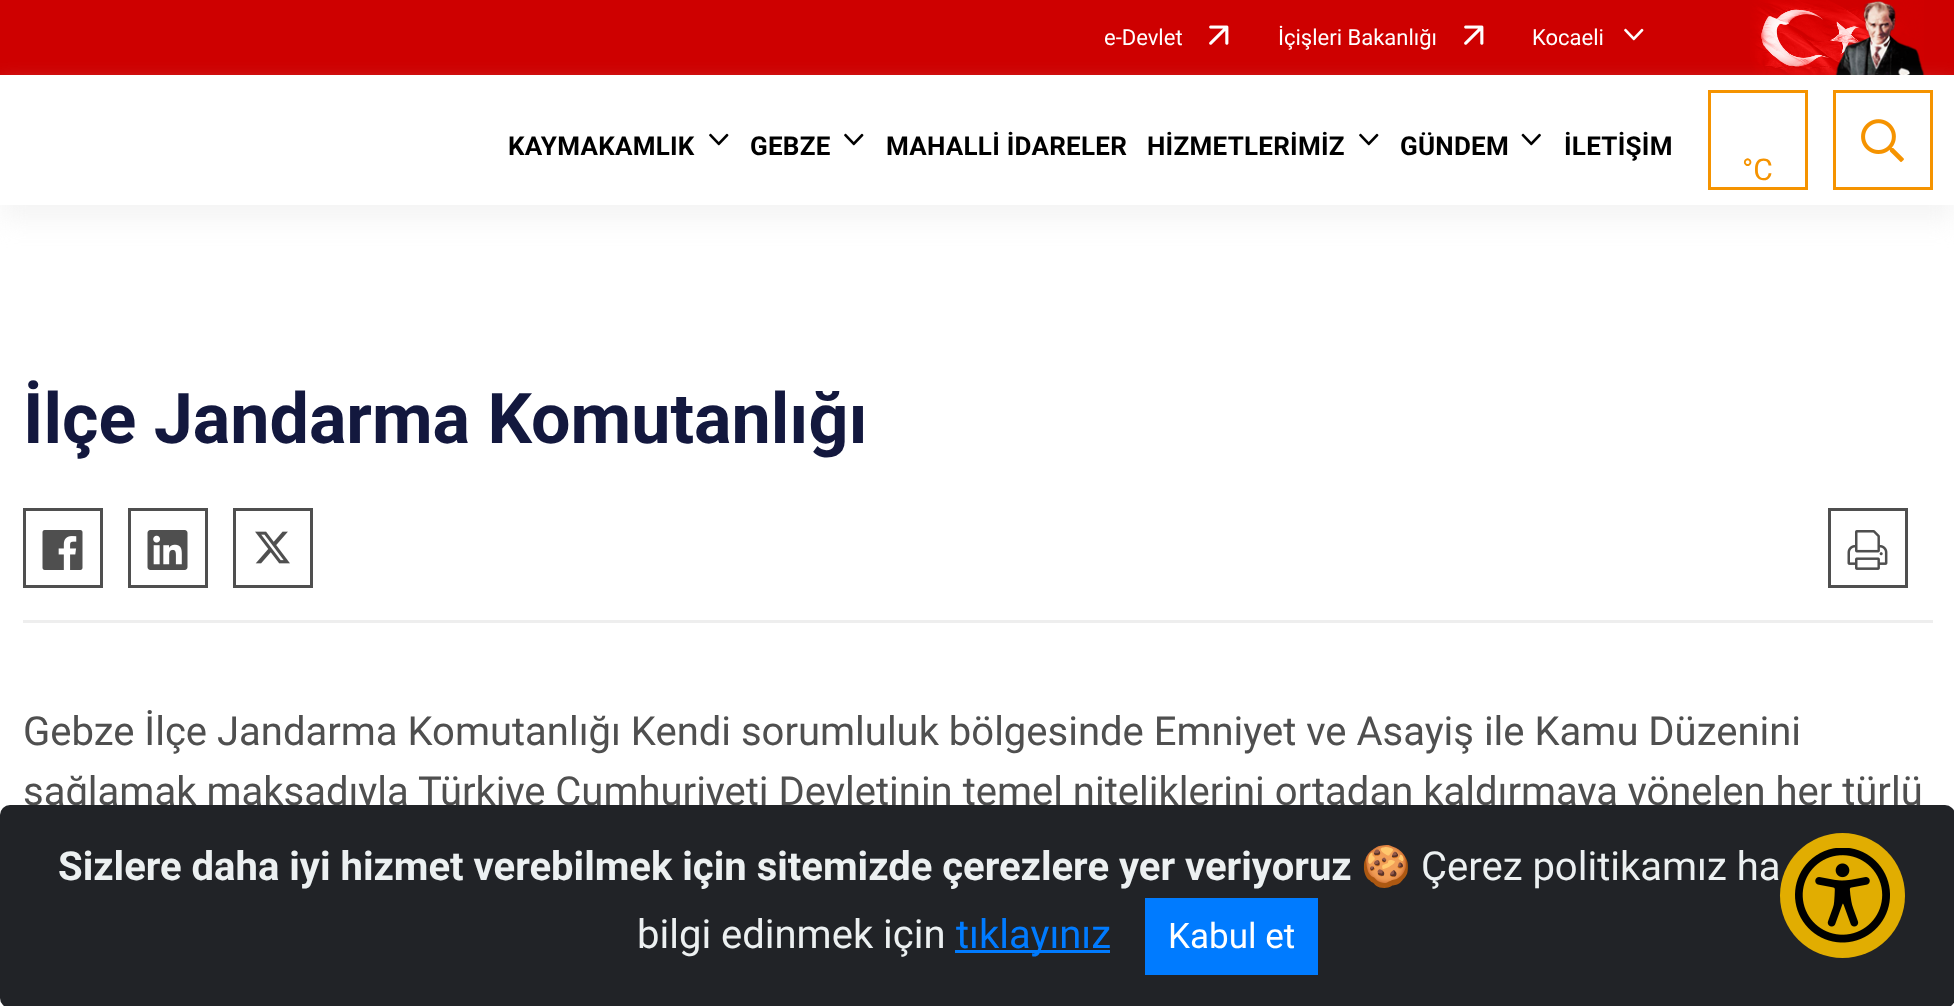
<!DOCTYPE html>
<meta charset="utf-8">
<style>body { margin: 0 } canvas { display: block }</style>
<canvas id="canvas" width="1954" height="1006"></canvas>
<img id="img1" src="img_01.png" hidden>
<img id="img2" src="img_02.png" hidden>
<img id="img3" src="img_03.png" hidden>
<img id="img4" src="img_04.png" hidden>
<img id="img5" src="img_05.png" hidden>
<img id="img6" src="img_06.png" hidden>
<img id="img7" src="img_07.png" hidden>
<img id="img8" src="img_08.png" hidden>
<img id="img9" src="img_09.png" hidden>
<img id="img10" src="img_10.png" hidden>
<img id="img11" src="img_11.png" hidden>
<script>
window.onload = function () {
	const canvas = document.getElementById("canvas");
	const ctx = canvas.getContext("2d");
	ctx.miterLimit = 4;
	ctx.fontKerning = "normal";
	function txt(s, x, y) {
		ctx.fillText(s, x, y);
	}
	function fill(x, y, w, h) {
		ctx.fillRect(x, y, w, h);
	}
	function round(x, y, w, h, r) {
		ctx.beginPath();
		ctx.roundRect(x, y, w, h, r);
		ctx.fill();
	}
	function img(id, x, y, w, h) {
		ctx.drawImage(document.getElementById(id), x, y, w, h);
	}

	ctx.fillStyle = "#FFFFFF";
	fill(0, 0, 1954, 1006);
	ctx.fillStyle = "#CE0000";
	fill(0, 0, 1954, 75);
	img("img1", 1209, 25, 20, 20);
	img("img1", 1464, 25, 20, 20);
	img("img2", 1624, 28, 20, 13);
	img("img3", 1750, 0, 175, 75);
	ctx.save();
	ctx.beginPath();
	ctx.moveTo(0, 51);
	ctx.lineTo(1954, 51);
	ctx.lineTo(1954, 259);
	ctx.lineTo(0, 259);
	ctx.closePath();
	ctx.moveTo(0, 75);
	ctx.lineTo(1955, 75);
	ctx.lineTo(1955, 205);
	ctx.lineTo(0, 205);
	ctx.closePath();
	ctx.clip("evenodd");
	ctx.fillStyle = "rgba(238, 238, 238, 0.62)";
	ctx.filter = "blur(12.5px)";
	ctx.beginPath();
	ctx.rect(0, 90, 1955, 130);
	ctx.fill();
	ctx.filter = "none";
	ctx.restore();
	img("img4", 709, 133, 20, 13);
	img("img4", 844, 133, 20, 13);
	img("img4", 1359, 133, 20, 13);
	img("img5", 1521, 133, 20, 13);
	ctx.strokeStyle = "#F59300";
	ctx.lineWidth = 3;
	ctx.strokeRect(1709.5, 91.5, 97, 97);
	ctx.strokeRect(1834.5, 91.5, 97, 97);
	img("img6", 1861, 119, 43, 43);
	ctx.fillStyle = "#EEEEEE";
	fill(23, 620, 1910, 3);
	ctx.strokeStyle = "#4F4F4F";
	ctx.strokeRect(24.5, 509.5, 77, 77);
	img("img7", 42, 530, 41, 40);
	ctx.strokeRect(129.5, 509.5, 77, 77);
	img("img8", 147, 530, 41, 40);
	ctx.strokeRect(234.5, 509.5, 77, 77);
	img("img9", 255, 531, 35, 33);
	ctx.strokeRect(1829.5, 509.5, 77, 77);
	img("img10", 1847, 530, 41, 40);
	ctx.font = "22px Roboto";
	ctx.fillStyle = "#FFFFFF";
	txt("e-Devlet", 1104, 45);
	txt("İçişleri Bakanlığı", 1278, 45);
	txt("Kocaeli", 1532, 45);
	ctx.letterSpacing = "0.25px";
	ctx.font = "bold 26px Roboto";
	ctx.fillStyle = "#000000";
	txt("KAYMAKAMLIK", 508, 155);
	txt("GEBZE", 750, 155);
	txt("MAHALLİ İDARELER", 886, 155);
	txt("HİZMETLERİMİZ", 1147, 155);
	txt("GÜNDEM", 1400, 155);
	txt("İLETİŞİM", 1564, 155);
	ctx.letterSpacing = "0px";
	ctx.font = "30px Roboto";
	ctx.fillStyle = "#F59300";
	txt("°C", 1742, 180);
	ctx.font = "bold 70px Roboto";
	ctx.fillStyle = "#13183E";
	txt("İlçe Jandarma Komutanlığı", 23, 443);
	ctx.font = "40px Roboto";
	ctx.fillStyle = "#4F4F4F";
	txt("Gebze İlçe Jandarma Komutanlığı Kendi sorumluluk bölgesinde Emniyet ve Asayiş ile Kamu Düzenini", 23, 745);
	txt("sağlamak maksadıyla Türkiye Cumhuriyeti Devletinin temel niteliklerini ortadan kaldırmaya yönelen her türlü", 23, 805);
	ctx.fillStyle = "#212327";
	round(0, 805, 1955, 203, 10);
	ctx.font = "bold 40px Roboto";
	ctx.fillStyle = "#ECF0F1";
	txt("Sizlere daha iyi hizmet verebilmek için sitemizde çerezlere yer veriyoruz", 58, 880);
	ctx.font = "40px Noto Color Emoji";
	txt("🍪", 1361, 880);
	ctx.font = "40px Roboto";
	txt("Çerez politikamız ha", 1421, 880);
	txt("bilgi edinmek için", 637, 948);
	ctx.fillStyle = "#007BFF";
	fill(955, 950, 155, 3);
	txt("tıklayınız", 956, 948);
	fill(1145, 898, 173, 77);
	ctx.font = "35px Roboto";
	ctx.fillStyle = "#FFFFFF";
	txt("Kabul et", 1168, 948);
	ctx.fillStyle = "#E1AD01";
	ctx.beginPath();
	ctx.arc(1842.5, 895.5, 62.5, 0, Math.PI * 2);
	ctx.fill();
	img("img11", 1795, 848, 95, 95);
};
</script>
